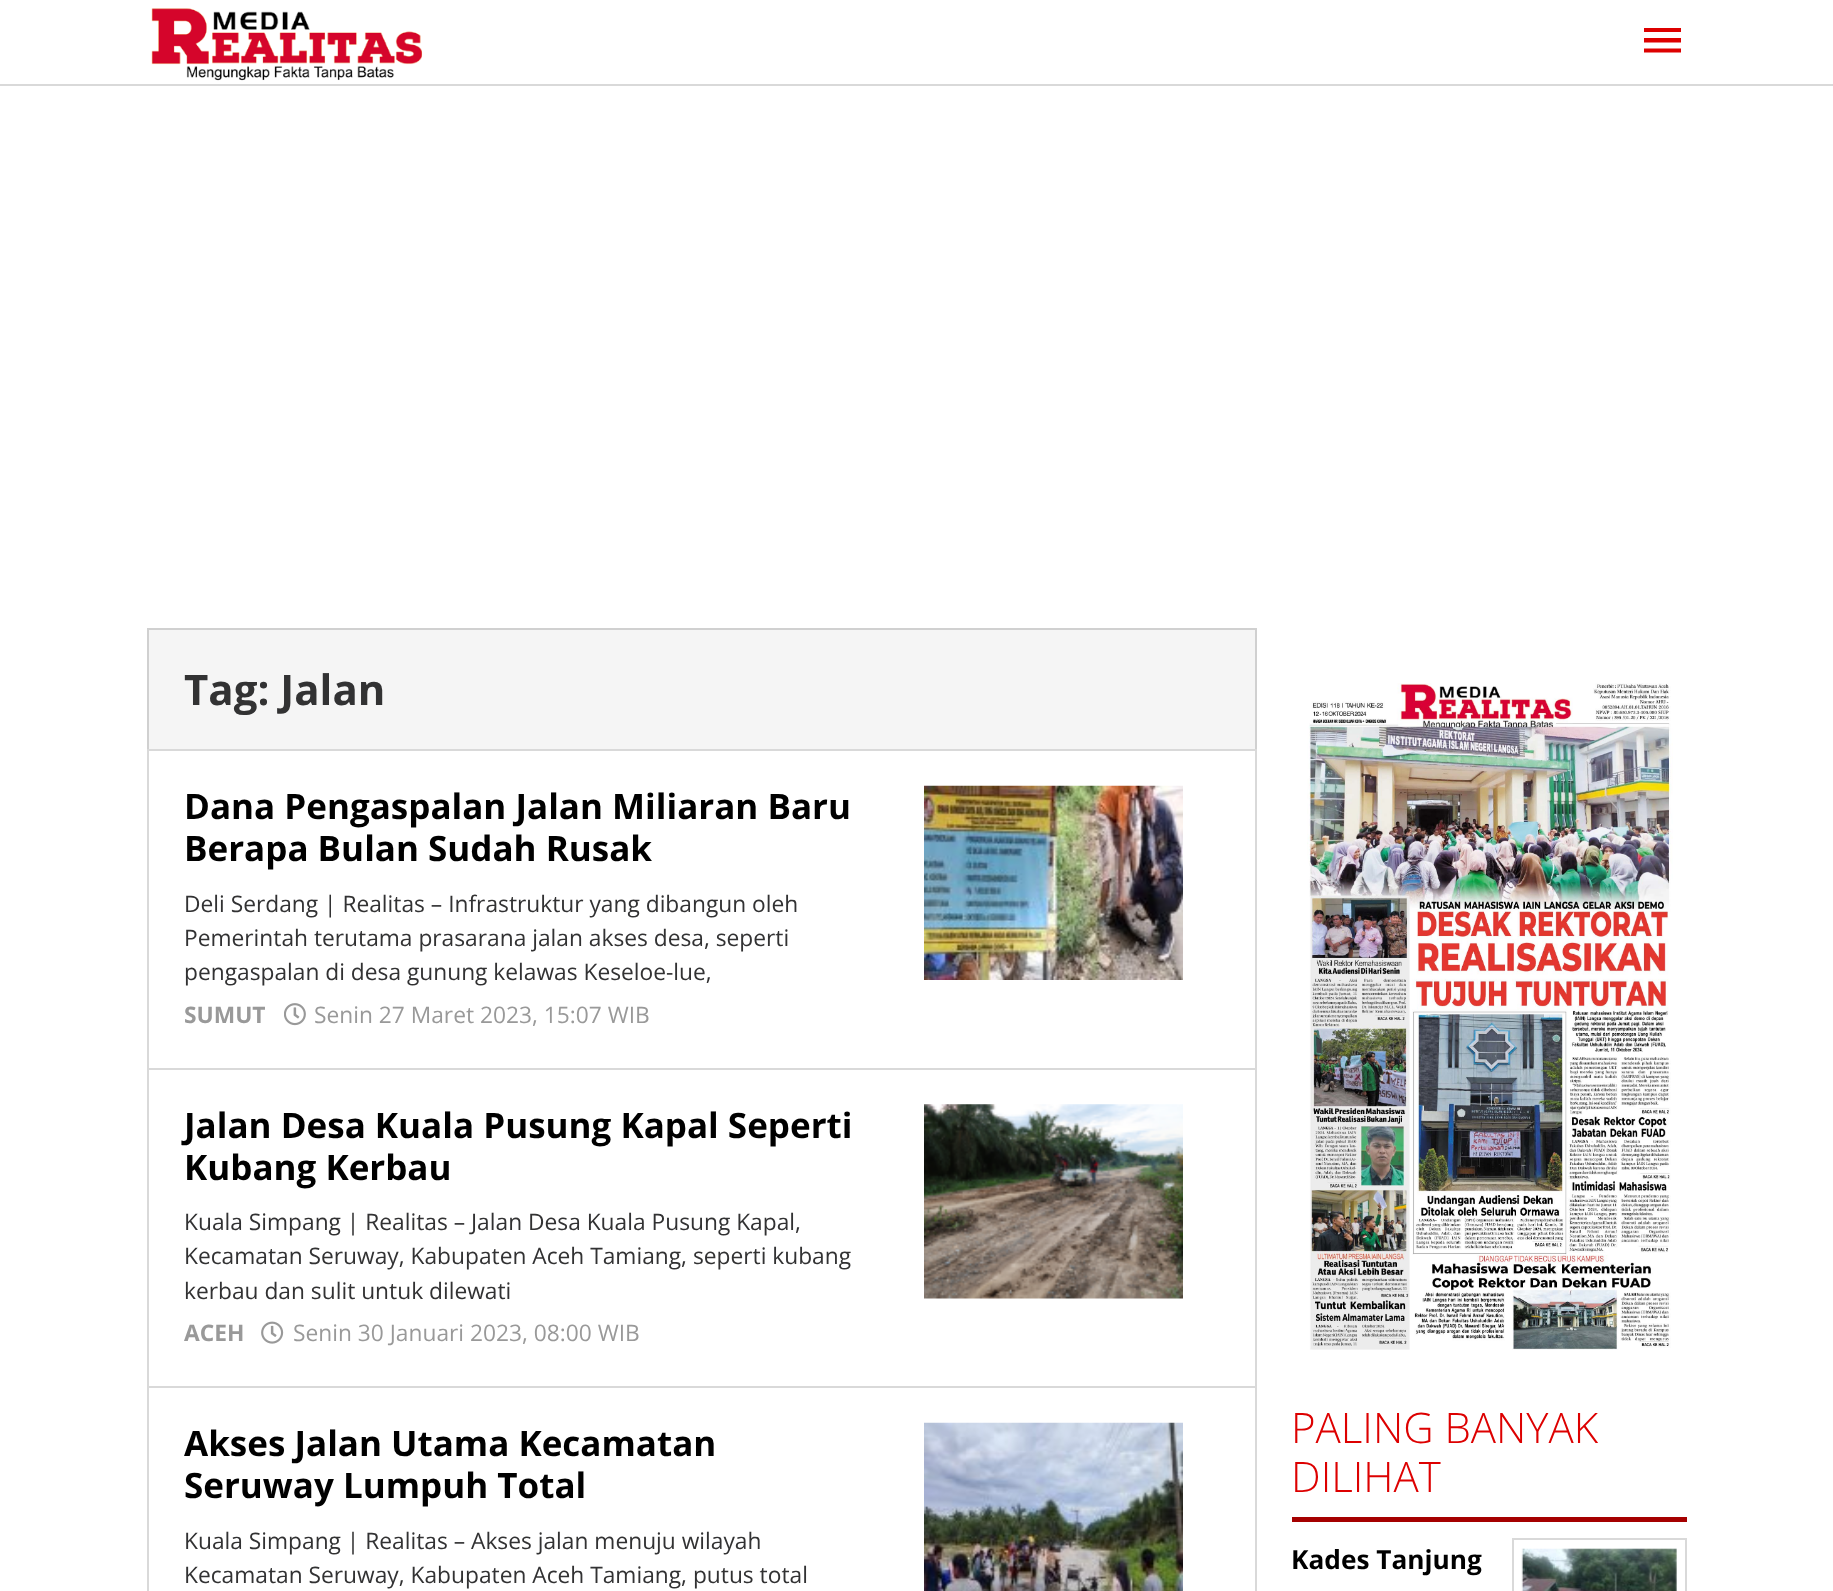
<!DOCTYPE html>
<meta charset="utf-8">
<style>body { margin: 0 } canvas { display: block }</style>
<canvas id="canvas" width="1833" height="1591"></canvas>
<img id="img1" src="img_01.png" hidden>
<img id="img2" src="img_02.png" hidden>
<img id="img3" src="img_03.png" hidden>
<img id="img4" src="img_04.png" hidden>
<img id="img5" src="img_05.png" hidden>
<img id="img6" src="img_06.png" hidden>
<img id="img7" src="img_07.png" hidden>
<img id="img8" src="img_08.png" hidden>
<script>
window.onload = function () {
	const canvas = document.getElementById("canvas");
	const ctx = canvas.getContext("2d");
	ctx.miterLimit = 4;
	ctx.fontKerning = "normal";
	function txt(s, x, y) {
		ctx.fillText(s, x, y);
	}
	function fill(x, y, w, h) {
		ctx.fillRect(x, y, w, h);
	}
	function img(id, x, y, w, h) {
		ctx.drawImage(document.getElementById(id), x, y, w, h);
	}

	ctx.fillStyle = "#FFFFFF";
	fill(0, 0, 1833, 1591);
	ctx.fillStyle = "#D9D9D9";
	fill(0, 84, 1833, 2);
	img("img1", 151, 8, 272, 73);
	ctx.fillStyle = "#DD0000";
	ctx.beginPath();
	ctx.moveTo(1644, 52.5);
	ctx.lineTo(1681, 52.5);
	ctx.lineTo(1681, 48.5);
	ctx.lineTo(1644, 48.5);
	ctx.closePath();
	ctx.moveTo(1644, 42.5);
	ctx.lineTo(1681, 42.5);
	ctx.lineTo(1681, 38);
	ctx.lineTo(1644, 38);
	ctx.closePath();
	ctx.moveTo(1644, 28);
	ctx.lineTo(1644, 32);
	ctx.lineTo(1681, 32);
	ctx.lineTo(1681, 28);
	ctx.closePath();
	ctx.fill();
	ctx.fillStyle = "#F5F5F5";
	ctx.beginPath();
	ctx.rect(148, 629, 1108, 121);
	ctx.fill();
	ctx.strokeStyle = "#D0D0D0";
	ctx.lineWidth = 2;
	ctx.stroke();
	ctx.strokeStyle = "#D9D9D9";
	ctx.strokeRect(148, 750, 1108, 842);
	ctx.fillStyle = "#D9D9D9";
	fill(149, 1068, 1106, 2);
	img("img2", 284, 1003, 22, 23);
	img("img3", 924, 785, 259, 195);
	fill(149, 1386, 1106, 2);
	img("img4", 261, 1321, 23, 23);
	img("img5", 924, 1104, 259, 195);
	img("img6", 924, 1422, 259, 169);
	img("img7", 1307, 683, 366, 667);
	ctx.fillStyle = "#A50000";
	fill(1292, 1517, 395, 5);
	ctx.strokeRect(1513, 1539, 173, 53);
	img("img8", 1521, 1548, 156, 43);
	ctx.font = "bold 42px Open Sans";
	ctx.fillStyle = "#323233";
	txt("Tag: Jalan", 184, 705);
	ctx.font = "bold 35px Open Sans";
	ctx.fillStyle = "#000000";
	txt("Dana Pengaspalan Jalan Miliaran Baru", 184, 819);
	txt("Berapa Bulan Sudah Rusak", 184, 861);
	ctx.font = "22.75px Open Sans";
	ctx.fillStyle = "#323233";
	txt("Deli Serdang | Realitas – Infrastruktur yang dibangun oleh", 184, 912);
	txt("Pemerintah terutama prasarana jalan akses desa, seperti", 184, 946);
	txt("pengaspalan di desa gunung kelawas Keseloe-lue,", 184, 980);
	ctx.font = "bold 22.75px Open Sans";
	ctx.fillStyle = "#999999";
	txt("SUMUT", 184, 1023);
	ctx.font = "22.75px Open Sans";
	txt("Senin 27 Maret 2023, 15:07 WIB", 314, 1023);
	ctx.font = "bold 35px Open Sans";
	ctx.fillStyle = "#000000";
	txt("Jalan Desa Kuala Pusung Kapal Seperti", 184, 1138);
	txt("Kubang Kerbau", 184, 1180);
	ctx.font = "22.75px Open Sans";
	ctx.fillStyle = "#323233";
	txt("Kuala Simpang | Realitas – Jalan Desa Kuala Pusung Kapal,", 184, 1230);
	txt("Kecamatan Seruway, Kabupaten Aceh Tamiang, seperti kubang", 184, 1264);
	txt("kerbau dan sulit untuk dilewati", 184, 1299);
	ctx.font = "bold 22.75px Open Sans";
	ctx.fillStyle = "#999999";
	txt("ACEH", 184, 1341);
	ctx.font = "22.75px Open Sans";
	txt("Senin 30 Januari 2023, 08:00 WIB", 293, 1341);
	ctx.font = "bold 35px Open Sans";
	ctx.fillStyle = "#000000";
	txt("Akses Jalan Utama Kecamatan", 184, 1456);
	txt("Seruway Lumpuh Total", 184, 1498);
	ctx.font = "22.75px Open Sans";
	ctx.fillStyle = "#323233";
	txt("Kuala Simpang | Realitas – Akses jalan menuju wilayah", 184, 1549);
	txt("Kecamatan Seruway, Kabupaten Aceh Tamiang, putus total", 184, 1583);
	ctx.font = "300 42px Open Sans";
	ctx.fillStyle = "#DD0000";
	txt("PALING BANYAK", 1291, 1443);
	txt("DILIHAT", 1291, 1492);
	ctx.font = "bold 26.25px Open Sans";
	ctx.fillStyle = "#000000";
	txt("Kades Tanjung", 1291, 1569);
};
</script>
